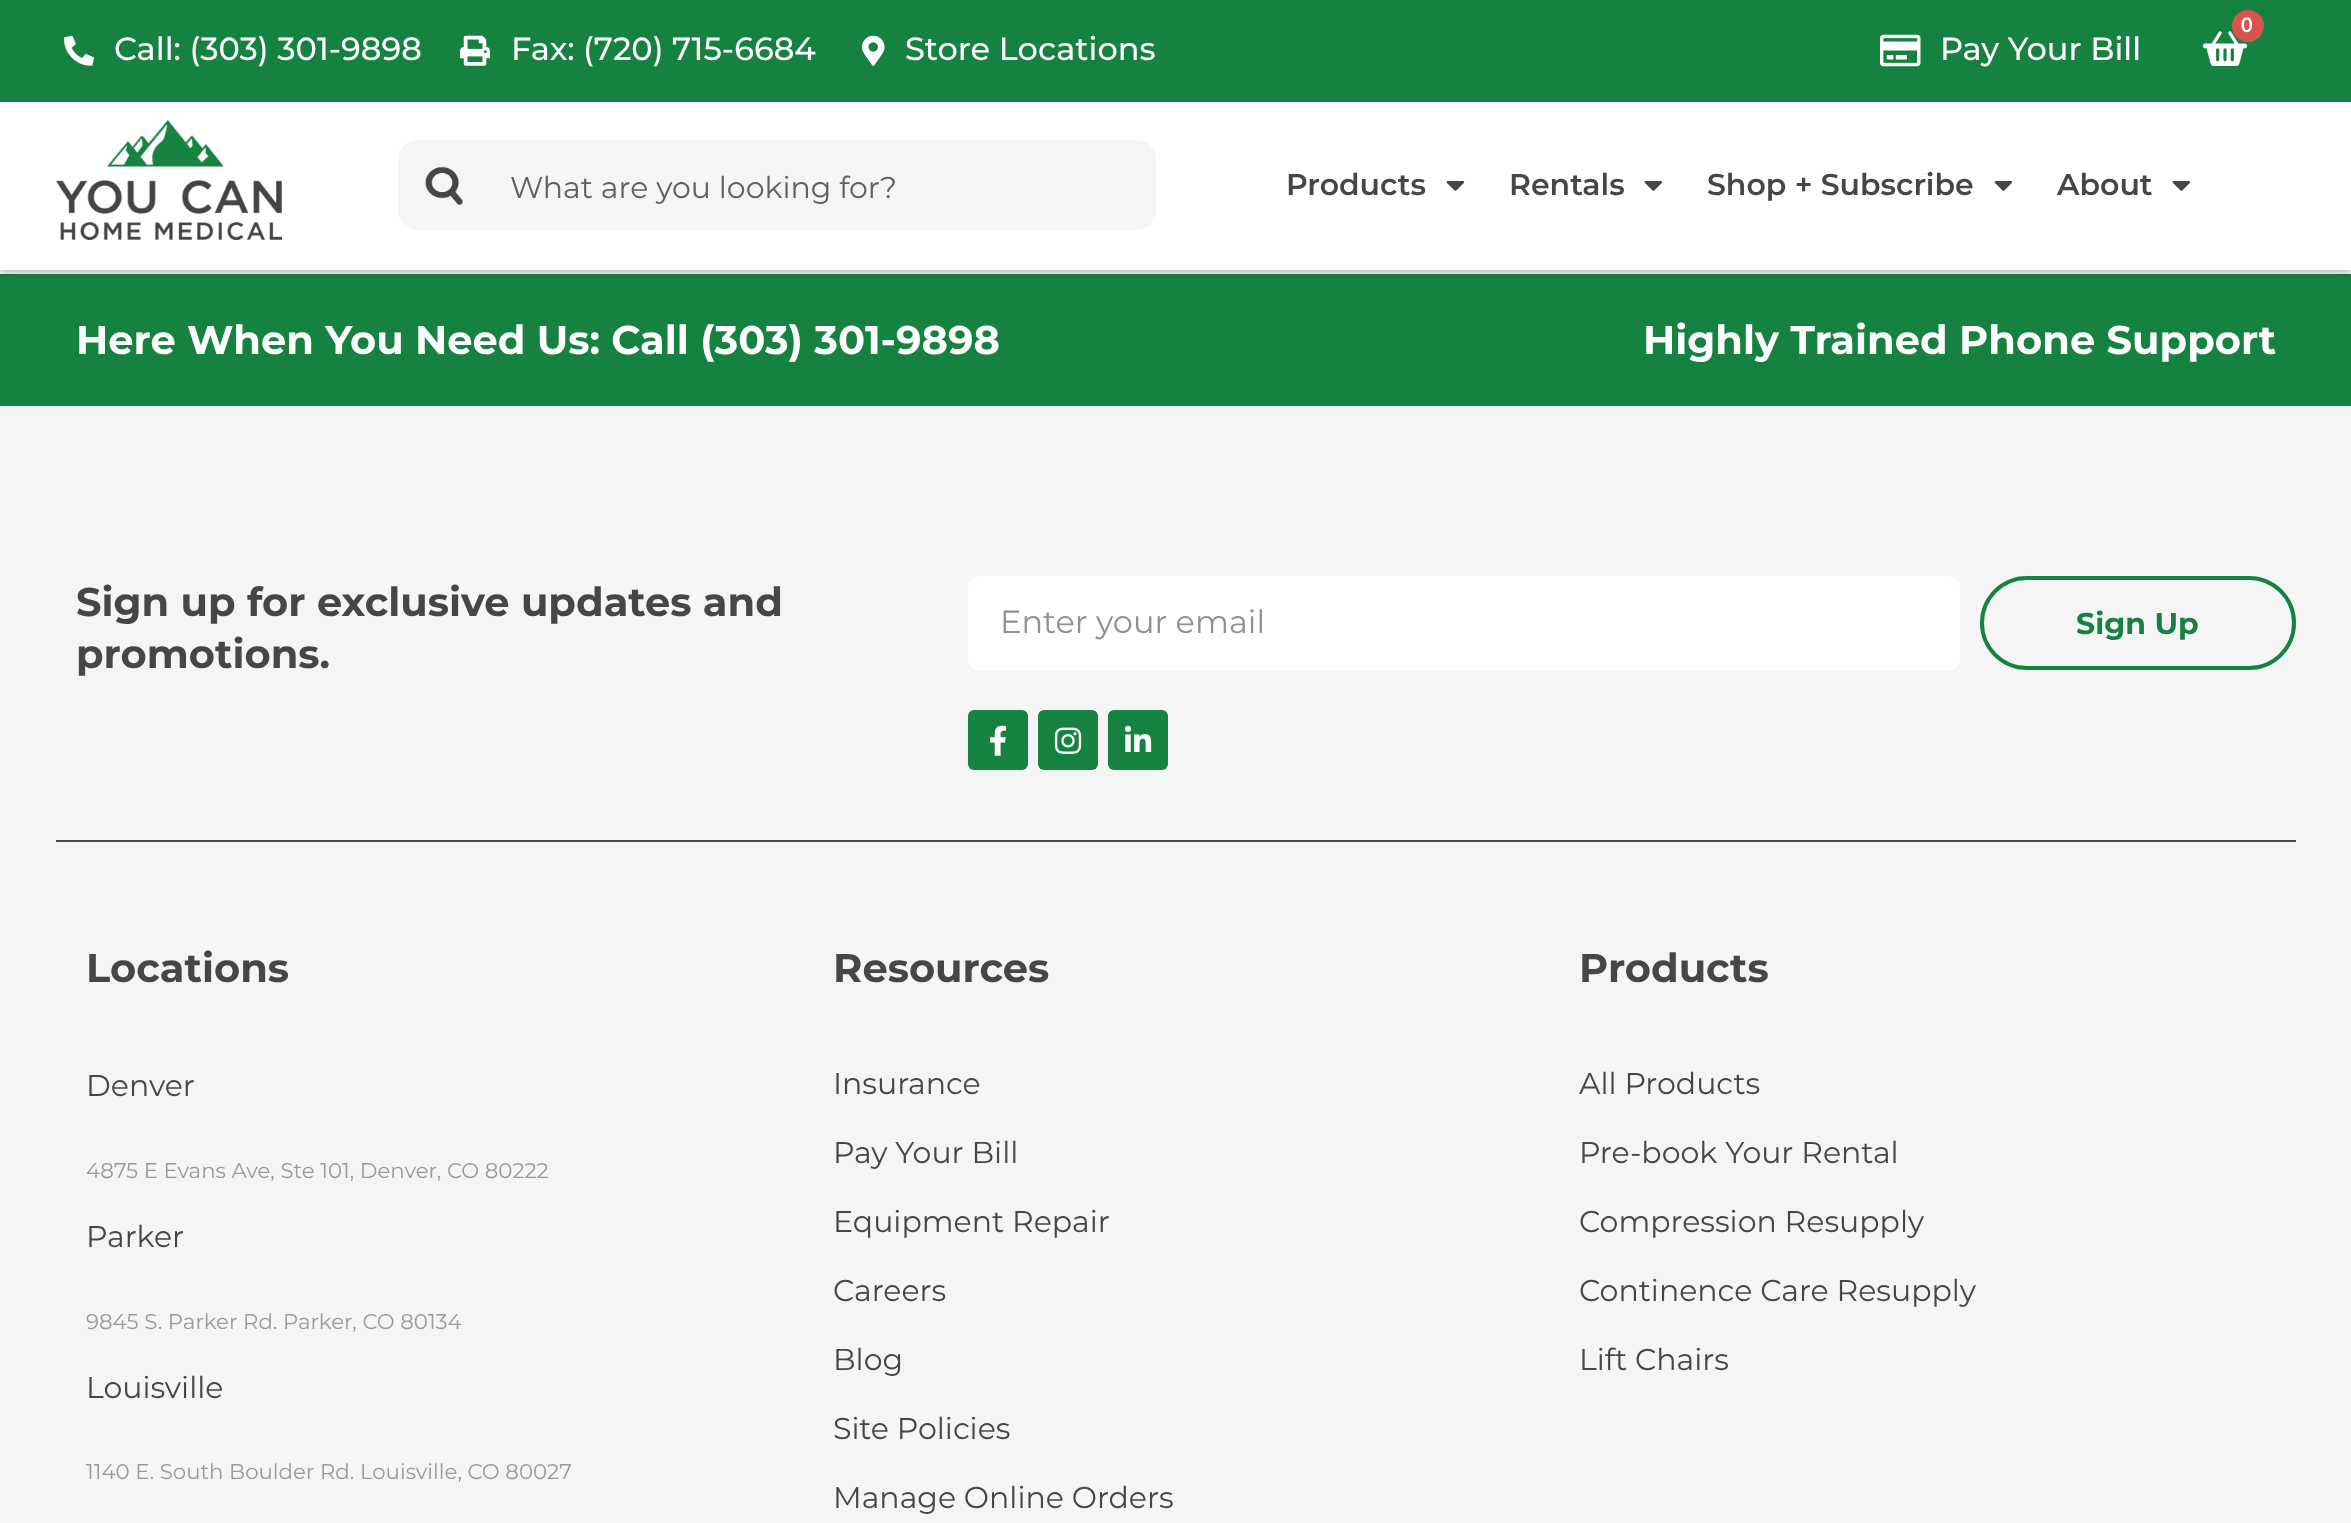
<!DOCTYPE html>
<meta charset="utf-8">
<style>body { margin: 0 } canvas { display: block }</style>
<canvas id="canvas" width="2351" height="1523"></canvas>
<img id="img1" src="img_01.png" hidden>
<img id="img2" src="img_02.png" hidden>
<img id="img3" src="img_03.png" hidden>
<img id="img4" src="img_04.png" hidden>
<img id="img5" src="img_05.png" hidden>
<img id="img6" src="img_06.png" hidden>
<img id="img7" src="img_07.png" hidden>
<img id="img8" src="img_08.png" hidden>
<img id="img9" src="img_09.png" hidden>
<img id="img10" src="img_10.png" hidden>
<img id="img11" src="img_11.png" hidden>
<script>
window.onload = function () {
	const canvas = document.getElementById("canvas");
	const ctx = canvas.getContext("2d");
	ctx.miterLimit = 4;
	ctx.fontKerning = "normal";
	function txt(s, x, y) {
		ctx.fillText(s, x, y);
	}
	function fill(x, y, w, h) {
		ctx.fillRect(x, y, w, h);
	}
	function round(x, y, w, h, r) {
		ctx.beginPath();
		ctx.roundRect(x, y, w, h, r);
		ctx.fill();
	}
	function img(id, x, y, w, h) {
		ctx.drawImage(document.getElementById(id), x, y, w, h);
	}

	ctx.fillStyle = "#FFFFFF";
	fill(0, 0, 2351, 1523);
	ctx.fillStyle = "#168241";
	fill(0, 274, 2351, 132);
	ctx.fillStyle = "rgba(0, 0, 0, 0.5)";
	ctx.filter = "blur(5px)";
	ctx.beginPath();
	ctx.rect(0, 100, 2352, 170);
	ctx.fill();
	ctx.filter = "none";
	ctx.fillStyle = "#168241";
	fill(0, 0, 2351, 102);
	img("img1", 64, 35, 30, 31);
	img("img2", 460, 35, 30, 31);
	img("img3", 862, 35, 23, 31);
	img("img4", 2202, 31, 46, 35);
	ctx.fillStyle = "#D9534F";
	ctx.beginPath();
	ctx.arc(2248, 26, 16, 0, Math.PI * 2);
	ctx.fill();
	img("img5", 1880, 34, 41, 33);
	ctx.fillStyle = "#FFFFFF";
	fill(0, 102, 2351, 168);
	img("img6", 56, 120, 226, 120);
	ctx.fillStyle = "#F5F5F5";
	round(398, 140, 758, 90, 20);
	img("img7", 425, 166, 39, 39);
	img("img8", 1446, 181, 19, 10);
	img("img8", 1644, 181, 19, 10);
	img("img8", 1994, 181, 19, 10);
	img("img8", 2172, 181, 19, 10);
	fill(0, 406, 2351, 1117);
	ctx.fillStyle = "#FFFFFF";
	round(968, 576, 992, 94, 10);
	ctx.beginPath();
	ctx.roundRect(1982, 578, 312, 90, 45);
	ctx.strokeStyle = "#168241";
	ctx.lineWidth = 4;
	ctx.stroke();
	ctx.fillStyle = "#168241";
	round(968, 710, 60, 60, 6);
	img("img9", 989, 725, 18, 31);
	round(1038, 710, 60, 60, 6);
	img("img10", 1054, 727, 28, 27);
	round(1108, 710, 60, 60, 6);
	img("img11", 1124, 725, 28, 27);
	ctx.fillStyle = "#464547";
	fill(56, 840, 2240, 2);
	ctx.font = "500 32px Montserrat";
	ctx.fillStyle = "#FFFFFF";
	txt("Call: (303) 301-9898", 114, 60);
	txt("Fax: (720) 715-6684", 511, 60);
	txt("Store Locations", 905, 60);
	ctx.font = "bold 20px Lato";
	txt("0", 2241, 32);
	ctx.font = "500 32px Montserrat";
	txt("Pay Your Bill", 1940, 60);
	ctx.font = "30px Montserrat";
	ctx.fillStyle = "#605F61";
	txt("What are you looking for?", 510, 198);
	ctx.font = "600 30px Montserrat";
	ctx.fillStyle = "#464547";
	txt("Products", 1286, 195);
	txt("Rentals", 1509, 195);
	txt("Shop + Subscribe", 1707, 195);
	txt("About", 2057, 195);
	ctx.font = "bold 40px Montserrat";
	ctx.fillStyle = "#FFFFFF";
	txt("Here When You Need Us: Call (303) 301-9898", 76, 354);
	txt("Highly Trained Phone Support", 1643, 354);
	ctx.fillStyle = "#464547";
	txt("Sign up for exclusive updates and", 76, 616);
	txt("promotions.", 76, 668);
	ctx.font = "32px Montserrat";
	ctx.fillStyle = "#908F91";
	txt("Enter your email", 1000, 633);
	ctx.font = "bold 30px Montserrat";
	ctx.fillStyle = "#168241";
	txt("Sign Up", 2076, 634);
	ctx.font = "bold 40px Montserrat";
	ctx.fillStyle = "#464547";
	txt("Locations", 86, 982);
	ctx.font = "30px Montserrat";
	txt("Denver", 86, 1096);
	ctx.font = "21.3px Montserrat";
	ctx.fillStyle = "#9A999B";
	txt("4875 E Evans Ave, Ste 101, Denver, CO 80222", 86, 1178);
	ctx.font = "30px Montserrat";
	ctx.fillStyle = "#464547";
	txt("Parker", 86, 1247);
	ctx.font = "21.3px Montserrat";
	ctx.fillStyle = "#9A999B";
	txt("9845 S. Parker Rd. Parker, CO 80134", 86, 1329);
	ctx.font = "30px Montserrat";
	ctx.fillStyle = "#464547";
	txt("Louisville", 86, 1398);
	ctx.font = "21.3px Montserrat";
	ctx.fillStyle = "#9A999B";
	txt("1140 E. South Boulder Rd. Louisville, CO 80027", 86, 1479);
	ctx.font = "bold 40px Montserrat";
	ctx.fillStyle = "#464547";
	txt("Resources", 833, 982);
	ctx.font = "30px Montserrat";
	txt("Insurance", 833, 1094);
	txt("Pay Your Bill", 833, 1163);
	txt("Equipment Repair", 833, 1232);
	txt("Careers", 833, 1301);
	txt("Blog", 833, 1370);
	txt("Site Policies", 833, 1439);
	txt("Manage Online Orders", 833, 1508);
	ctx.font = "bold 40px Montserrat";
	txt("Products", 1579, 982);
	ctx.font = "30px Montserrat";
	txt("All Products", 1579, 1094);
	txt("Pre-book Your Rental", 1579, 1163);
	txt("Compression Resupply", 1579, 1232);
	txt("Continence Care Resupply", 1579, 1301);
	txt("Lift Chairs", 1579, 1370);
};
</script>
